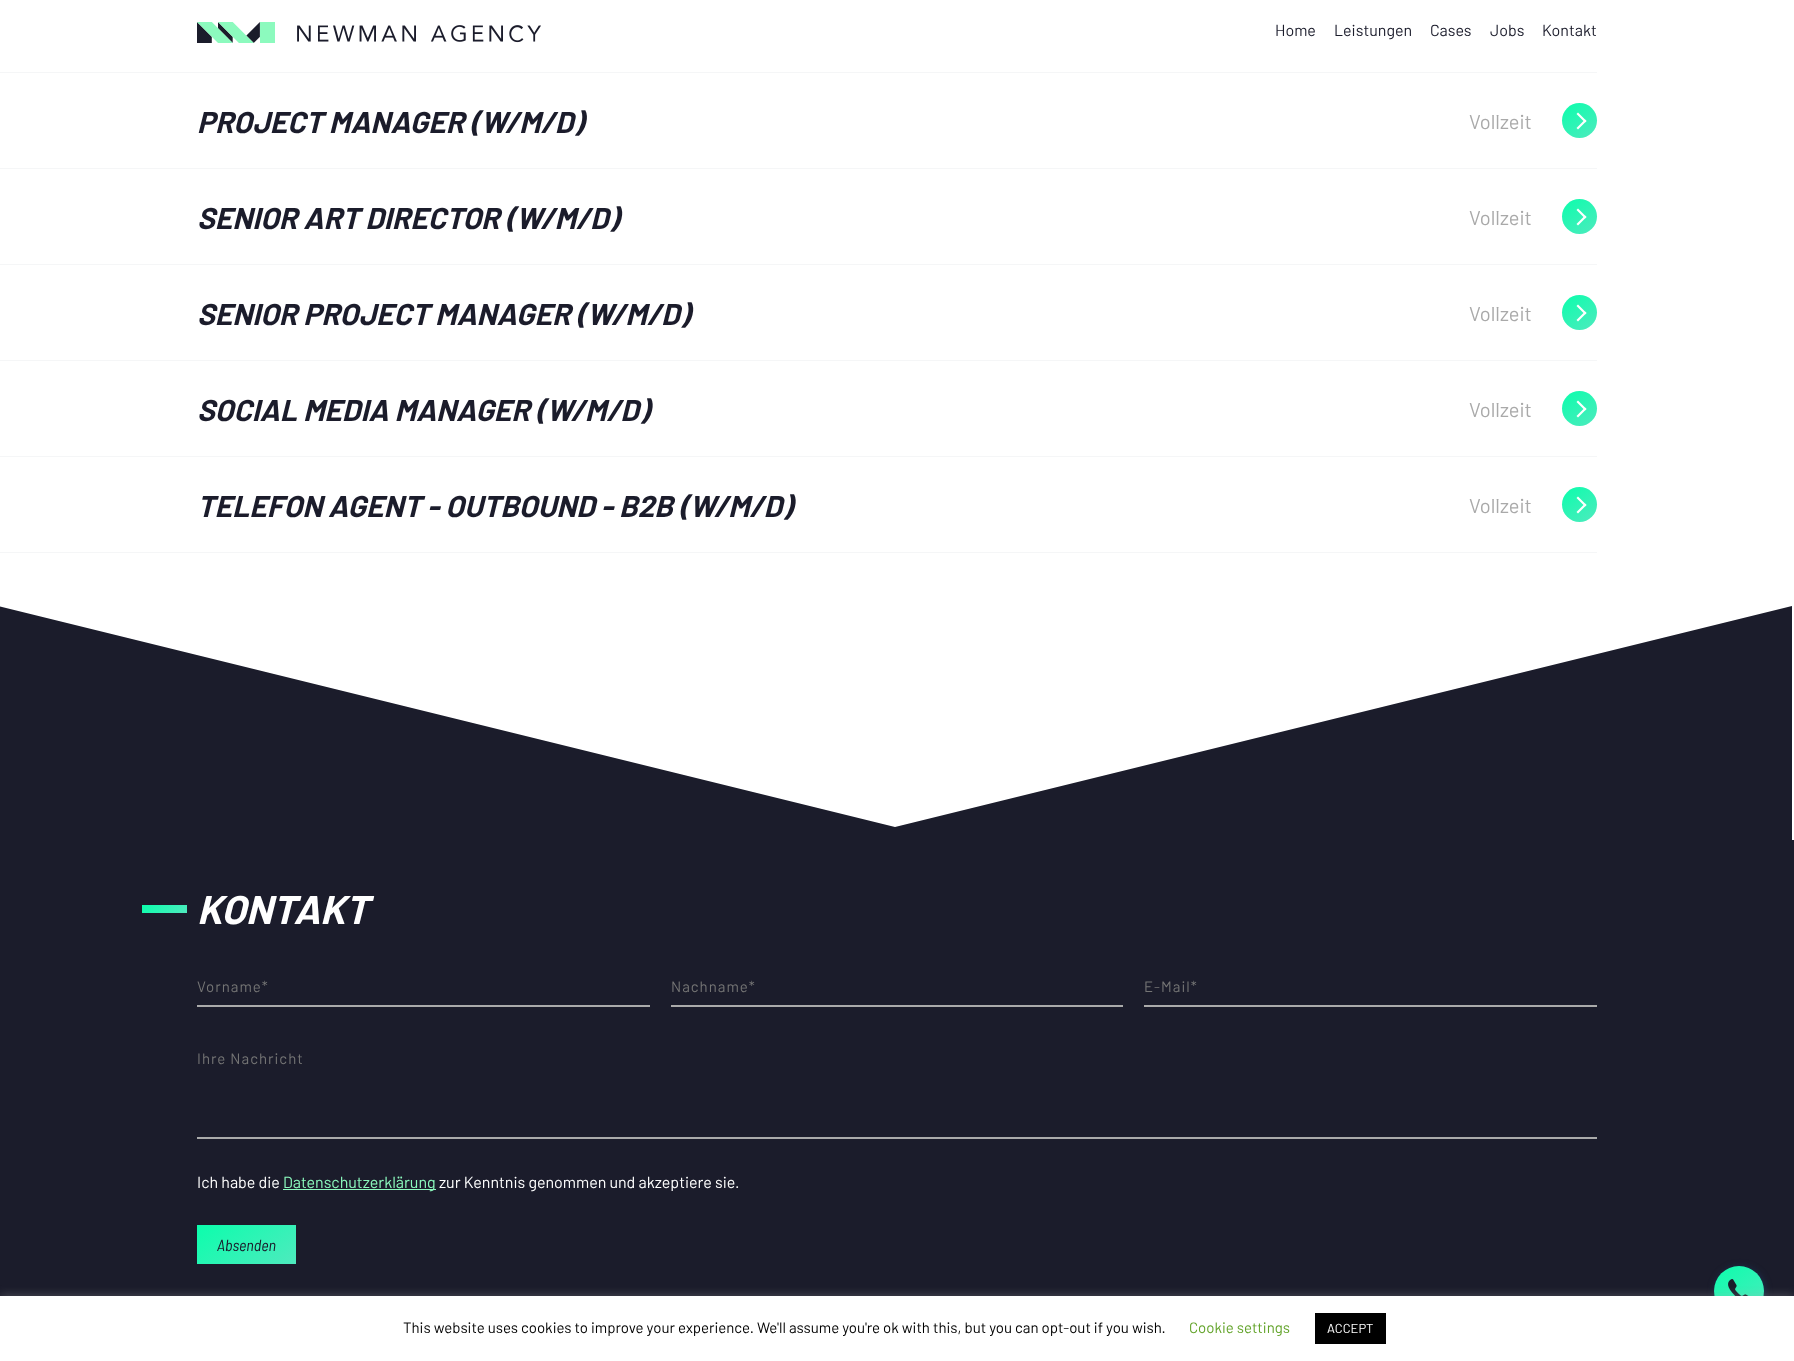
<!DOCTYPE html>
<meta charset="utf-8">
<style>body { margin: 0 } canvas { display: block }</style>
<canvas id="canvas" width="1794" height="1361"></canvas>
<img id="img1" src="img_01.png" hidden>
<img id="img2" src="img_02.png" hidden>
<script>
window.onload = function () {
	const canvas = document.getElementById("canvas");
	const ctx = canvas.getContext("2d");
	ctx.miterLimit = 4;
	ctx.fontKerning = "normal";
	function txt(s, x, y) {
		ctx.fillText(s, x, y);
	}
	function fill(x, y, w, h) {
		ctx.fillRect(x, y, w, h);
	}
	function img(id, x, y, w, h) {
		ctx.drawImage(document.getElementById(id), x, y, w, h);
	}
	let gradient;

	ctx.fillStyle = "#FFFFFF";
	fill(0, 0, 1794, 1361);
	img("img1", 197, 22, 344, 21);
	ctx.fillStyle = "#F5F6F7";
	fill(0, 72, 1597, 1);
	gradient = ctx.createLinearGradient(1594, 140, 1565, 101);
	gradient.addColorStop(0, "#4FEABE");
	gradient.addColorStop(1, "#0BFEAC");
	ctx.fillStyle = gradient;
	ctx.beginPath();
	ctx.arc(1579.5, 120.5, 17.5, 0, Math.PI * 2);
	ctx.fill();
	ctx.fillStyle = "#FFFFFF";
	ctx.beginPath();
	ctx.moveTo(1578, 112.5);
	ctx.lineTo(1586.5, 121);
	ctx.lineTo(1585, 122.5);
	ctx.lineTo(1576.5, 114);
	ctx.closePath();
	ctx.fill();
	ctx.beginPath();
	ctx.moveTo(1585, 119.5);
	ctx.lineTo(1586.5, 121);
	ctx.lineTo(1578, 129.5);
	ctx.lineTo(1576.5, 128);
	ctx.closePath();
	ctx.fill();
	ctx.fillStyle = "#F5F6F7";
	fill(0, 168, 1597, 1);
	gradient = ctx.createLinearGradient(1594, 236, 1565, 197);
	gradient.addColorStop(0, "#4FEABE");
	gradient.addColorStop(1, "#0BFEAC");
	ctx.fillStyle = gradient;
	ctx.beginPath();
	ctx.arc(1579.5, 216.5, 17.5, 0, Math.PI * 2);
	ctx.fill();
	ctx.fillStyle = "#FFFFFF";
	ctx.beginPath();
	ctx.moveTo(1578, 208.5);
	ctx.lineTo(1586.5, 217);
	ctx.lineTo(1585, 218.5);
	ctx.lineTo(1576.5, 210);
	ctx.closePath();
	ctx.fill();
	ctx.beginPath();
	ctx.moveTo(1585, 215.5);
	ctx.lineTo(1586.5, 217);
	ctx.lineTo(1578, 225.5);
	ctx.lineTo(1576.5, 224);
	ctx.closePath();
	ctx.fill();
	ctx.fillStyle = "#F5F6F7";
	fill(0, 264, 1597, 1);
	gradient = ctx.createLinearGradient(1594, 332, 1565, 293);
	gradient.addColorStop(0, "#4FEABE");
	gradient.addColorStop(1, "#0BFEAC");
	ctx.fillStyle = gradient;
	ctx.beginPath();
	ctx.arc(1579.5, 312.5, 17.5, 0, Math.PI * 2);
	ctx.fill();
	ctx.fillStyle = "#FFFFFF";
	ctx.beginPath();
	ctx.moveTo(1578, 304.5);
	ctx.lineTo(1586.5, 313);
	ctx.lineTo(1585, 314.5);
	ctx.lineTo(1576.5, 306);
	ctx.closePath();
	ctx.fill();
	ctx.beginPath();
	ctx.moveTo(1585, 311.5);
	ctx.lineTo(1586.5, 313);
	ctx.lineTo(1578, 321.5);
	ctx.lineTo(1576.5, 320);
	ctx.closePath();
	ctx.fill();
	ctx.fillStyle = "#F5F6F7";
	fill(0, 360, 1597, 1);
	gradient = ctx.createLinearGradient(1594, 428, 1565, 389);
	gradient.addColorStop(0, "#4FEABE");
	gradient.addColorStop(1, "#0BFEAC");
	ctx.fillStyle = gradient;
	ctx.beginPath();
	ctx.arc(1579.5, 408.5, 17.5, 0, Math.PI * 2);
	ctx.fill();
	ctx.fillStyle = "#FFFFFF";
	ctx.beginPath();
	ctx.moveTo(1578, 400.5);
	ctx.lineTo(1586.5, 409);
	ctx.lineTo(1585, 410.5);
	ctx.lineTo(1576.5, 402);
	ctx.closePath();
	ctx.fill();
	ctx.beginPath();
	ctx.moveTo(1585, 407.5);
	ctx.lineTo(1586.5, 409);
	ctx.lineTo(1578, 417.5);
	ctx.lineTo(1576.5, 416);
	ctx.closePath();
	ctx.fill();
	ctx.fillStyle = "#F5F6F7";
	fill(0, 456, 1597, 1);
	gradient = ctx.createLinearGradient(1594, 524, 1565, 485);
	gradient.addColorStop(0, "#4FEABE");
	gradient.addColorStop(1, "#0BFEAC");
	ctx.fillStyle = gradient;
	ctx.beginPath();
	ctx.arc(1579.5, 504.5, 17.5, 0, Math.PI * 2);
	ctx.fill();
	ctx.fillStyle = "#FFFFFF";
	ctx.beginPath();
	ctx.moveTo(1578, 496.5);
	ctx.lineTo(1586.5, 505);
	ctx.lineTo(1585, 506.5);
	ctx.lineTo(1576.5, 498);
	ctx.closePath();
	ctx.fill();
	ctx.beginPath();
	ctx.moveTo(1585, 503.5);
	ctx.lineTo(1586.5, 505);
	ctx.lineTo(1578, 513.5);
	ctx.lineTo(1576.5, 512);
	ctx.closePath();
	ctx.fill();
	ctx.fillStyle = "#F5F6F7";
	fill(0, 552, 1597, 1);
	ctx.fillStyle = "#1B1C2B";
	fill(0, 840, 1794, 456);
	ctx.save();
	ctx.beginPath();
	ctx.rect(0, 606, 1792, 234);
	ctx.clip();
	ctx.beginPath();
	ctx.moveTo(-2, 606);
	ctx.lineTo(895, 827);
	ctx.lineTo(1792, 606);
	ctx.lineTo(1792, 845);
	ctx.lineTo(-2, 845);
	ctx.closePath();
	ctx.fill();
	ctx.restore();
	gradient = ctx.createLinearGradient(175, 922, 154, 896);
	gradient.addColorStop(0, "#4FEABE");
	gradient.addColorStop(1, "#0BFEAC");
	ctx.fillStyle = gradient;
	fill(142, 905, 45, 8);
	ctx.fillStyle = "#AAAAAA";
	fill(197, 1005, 453, 2);
	fill(671, 1005, 452, 2);
	fill(1144, 1005, 453, 2);
	fill(197, 1137, 1400, 2);
	ctx.fillStyle = "#8CFABE";
	fill(283, 1189, 153, 1);
	gradient = ctx.createLinearGradient(274, 1281, 219, 1208);
	gradient.addColorStop(0, "#4FEABE");
	gradient.addColorStop(1, "#0BFEAC");
	ctx.fillStyle = gradient;
	fill(197, 1225, 99, 39);
	ctx.fillStyle = "#1B3251";
	ctx.filter = "blur(3.5px)";
	ctx.beginPath();
	ctx.roundRect(1715, 1267, 50, 50, 25);
	ctx.fill();
	ctx.filter = "none";
	gradient = ctx.createLinearGradient(1760, 1319, 1718, 1263);
	gradient.addColorStop(0, "#4FEABE");
	gradient.addColorStop(1, "#0BFEAC");
	ctx.fillStyle = gradient;
	ctx.beginPath();
	ctx.arc(1739, 1291, 25, 0, Math.PI * 2);
	ctx.fill();
	img("img2", 1728, 1279, 21, 17);
	ctx.fillStyle = "rgba(172, 171, 171, 0.3)";
	ctx.filter = "blur(5px)";
	ctx.beginPath();
	ctx.rect(0, 1295, 1794, 65);
	ctx.fill();
	ctx.filter = "none";
	ctx.fillStyle = "#FFFFFF";
	fill(0, 1296, 1794, 65);
	ctx.fillStyle = "#000000";
	fill(1315, 1313, 71, 31);
	ctx.font = "16px Barlow";
	ctx.fillStyle = "#1B1C2B";
	txt("Home", 1275, 36);
	txt("Leistungen", 1334, 36);
	txt("Cases", 1430, 36);
	txt("Jobs", 1490, 36);
	txt("Kontakt", 1542, 36);
	ctx.font = "italic bold 30px Barlow";
	txt("PROJECT MANAGER (W/M/D)", 197, 133);
	ctx.font = "20px Barlow";
	ctx.fillStyle = "#A9A9A9";
	txt("Vollzeit", 1469, 129);
	ctx.font = "italic bold 30px Barlow";
	ctx.fillStyle = "#1B1C2B";
	txt("SENIOR ART DIRECTOR (W/M/D)", 197, 229);
	ctx.font = "20px Barlow";
	ctx.fillStyle = "#A9A9A9";
	txt("Vollzeit", 1469, 225);
	ctx.font = "italic bold 30px Barlow";
	ctx.fillStyle = "#1B1C2B";
	txt("SENIOR PROJECT MANAGER (W/M/D)", 197, 325);
	ctx.font = "20px Barlow";
	ctx.fillStyle = "#A9A9A9";
	txt("Vollzeit", 1469, 321);
	ctx.font = "italic bold 30px Barlow";
	ctx.fillStyle = "#1B1C2B";
	txt("SOCIAL MEDIA MANAGER (W/M/D)", 197, 421);
	ctx.font = "20px Barlow";
	ctx.fillStyle = "#A9A9A9";
	txt("Vollzeit", 1469, 417);
	ctx.font = "italic bold 30px Barlow";
	ctx.fillStyle = "#1B1C2B";
	txt("TELEFON AGENT - OUTBOUND - B2B (W/M/D)", 197, 517);
	ctx.font = "20px Barlow";
	ctx.fillStyle = "#A9A9A9";
	txt("Vollzeit", 1469, 513);
	ctx.font = "italic bold 40px Barlow";
	ctx.fillStyle = "#FFFFFF";
	txt("KONTAKT", 197, 924);
	ctx.letterSpacing = "1px";
	ctx.font = "15px Barlow";
	ctx.fillStyle = "#757575";
	txt("Vorname*", 197, 992);
	txt("Nachname*", 671, 992);
	txt("E-Mail*", 1144, 992);
	txt("Ihre Nachricht", 197, 1064);
	ctx.letterSpacing = "0px";
	ctx.font = "16px Barlow";
	ctx.fillStyle = "#FFFFFF";
	txt("Ich habe die", 197, 1188);
	ctx.fillStyle = "#8CFABE";
	txt("Datenschutzerklärung", 283, 1188);
	ctx.fillStyle = "#FFFFFF";
	txt("zur Kenntnis genommen und akzeptiere sie.", 439, 1188);
	ctx.font = "italic 16px Barlow Semi Condensed";
	ctx.fillStyle = "#1B1C2B";
	txt("Absenden", 217, 1251);
	ctx.font = "15px Barlow";
	ctx.fillStyle = "#000000";
	txt("This website uses cookies to improve your experience. We'll assume you're ok with this, but you can opt-out if you wish.", 403, 1333);
	ctx.fillStyle = "#62A329";
	txt("Cookie settings", 1189, 1333);
	ctx.font = "13px Barlow";
	ctx.fillStyle = "#FFFFFF";
	txt("ACCEPT", 1327, 1333);
};
</script>
